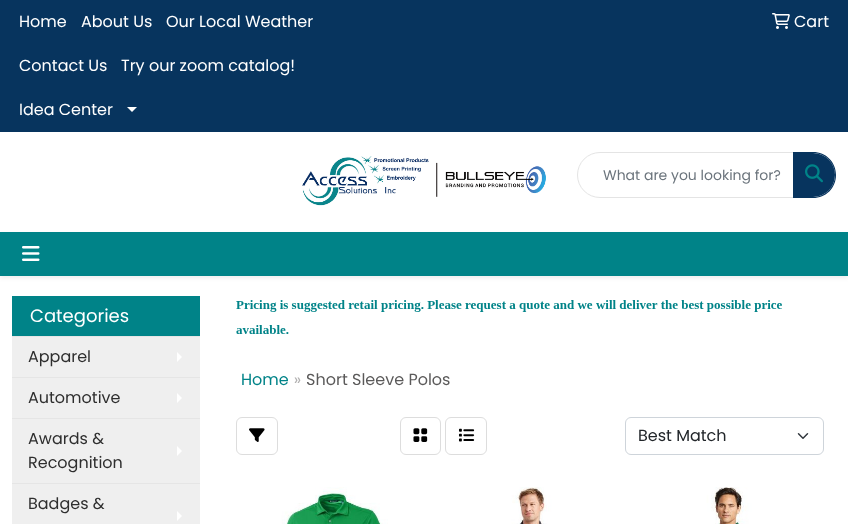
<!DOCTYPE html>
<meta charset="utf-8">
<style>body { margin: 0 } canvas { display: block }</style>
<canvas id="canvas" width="848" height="524"></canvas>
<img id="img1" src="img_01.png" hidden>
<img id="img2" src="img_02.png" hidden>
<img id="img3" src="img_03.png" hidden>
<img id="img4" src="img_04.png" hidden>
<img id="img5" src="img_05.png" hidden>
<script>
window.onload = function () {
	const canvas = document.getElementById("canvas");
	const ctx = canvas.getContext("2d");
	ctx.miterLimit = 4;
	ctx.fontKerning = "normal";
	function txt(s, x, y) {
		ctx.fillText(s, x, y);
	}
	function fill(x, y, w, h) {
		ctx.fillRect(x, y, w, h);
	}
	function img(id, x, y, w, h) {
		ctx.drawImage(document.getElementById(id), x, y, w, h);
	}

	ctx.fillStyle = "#FFFFFF";
	fill(0, 0, 848, 524);
	ctx.fillStyle = "#07345E";
	fill(0, 0, 848, 132);
	ctx.fillStyle = "#FFFFFF";
	ctx.beginPath();
	ctx.moveTo(127, 107);
	ctx.lineTo(137, 107);
	ctx.lineTo(132, 112);
	ctx.closePath();
	ctx.fill();
	img("img1", 772, 13, 18, 16);
	img("img2", 302, 156, 244, 50);
	ctx.beginPath();
	ctx.roundRect(577.5, 152.5, 216, 45, [22.5, 0, 0, 22.5]);
	ctx.strokeStyle = "#E4E4E4";
	ctx.stroke();
	ctx.fillStyle = "#07345E";
	ctx.beginPath();
	ctx.roundRect(793, 153, 42, 44, [0, 22, 22, 0]);
	ctx.fill();
	ctx.beginPath();
	ctx.moveTo(793, 152);
	ctx.lineTo(813, 152);
	ctx.bezierCurveTo(826, 152, 836, 162, 836, 175);
	ctx.bezierCurveTo(836, 188, 826, 198, 813, 198);
	ctx.lineTo(793, 198);
	ctx.closePath();
	ctx.moveTo(793, 153);
	ctx.lineTo(813, 153);
	ctx.bezierCurveTo(825, 153, 835, 163, 835, 175);
	ctx.bezierCurveTo(835, 187, 825, 197, 813, 197);
	ctx.lineTo(793, 197);
	ctx.closePath();
	ctx.fill("evenodd");
	img("img3", 805, 164, 18, 19);
	ctx.fillStyle = "rgba(0, 0, 0, 0.07)";
	ctx.filter = "blur(2px)";
	ctx.beginPath();
	ctx.rect(0, 234, 848, 44);
	ctx.fill();
	ctx.filter = "none";
	ctx.fillStyle = "#008388";
	fill(0, 232, 848, 44);
	img("img4", 22, 246, 18, 15);
	fill(12, 296, 188, 40);
	ctx.fillStyle = "#EFEFEF";
	fill(12, 337, 188, 40);
	ctx.fillStyle = "#E5E5E5";
	fill(12, 336, 188, 1);
	ctx.fillStyle = "#FFFFFF";
	ctx.beginPath();
	ctx.moveTo(177, 362);
	ctx.lineTo(177, 352);
	ctx.lineTo(182, 357);
	ctx.closePath();
	ctx.fill();
	ctx.fillStyle = "#EFEFEF";
	fill(12, 378, 188, 40);
	ctx.fillStyle = "#E5E5E5";
	fill(12, 377, 188, 1);
	ctx.fillStyle = "#FFFFFF";
	ctx.beginPath();
	ctx.moveTo(177, 403);
	ctx.lineTo(177, 393);
	ctx.lineTo(182, 398);
	ctx.closePath();
	ctx.fill();
	ctx.fillStyle = "#EFEFEF";
	fill(12, 419, 188, 64);
	ctx.fillStyle = "#E5E5E5";
	fill(12, 418, 188, 1);
	ctx.fillStyle = "#FFFFFF";
	ctx.beginPath();
	ctx.moveTo(177, 456);
	ctx.lineTo(177, 446);
	ctx.lineTo(182, 451);
	ctx.closePath();
	ctx.fill();
	ctx.fillStyle = "#EFEFEF";
	fill(12, 484, 188, 40);
	ctx.fillStyle = "#E5E5E5";
	fill(12, 483, 188, 1);
	ctx.fillStyle = "#FFFFFF";
	ctx.beginPath();
	ctx.moveTo(177, 521);
	ctx.lineTo(177, 511);
	ctx.lineTo(182, 516);
	ctx.closePath();
	ctx.fill();
	img("img5", 236, 300, 588, 224);
	ctx.font = "16px Poppins";
	txt("Home", 19, 27);
	txt("About Us", 81, 27);
	txt("Our Local Weather", 166, 27);
	txt("Contact Us", 19, 71);
	txt("Try our zoom catalog!", 121, 71);
	txt("Idea Center", 19, 115);
	txt("Cart", 794, 27);
	ctx.font = "14px Poppins";
	ctx.fillStyle = "#6C757D";
	txt("What are you looking for?", 603, 180);
	ctx.font = "18px Poppins";
	ctx.fillStyle = "#FFFFFF";
	txt("Categories", 30, 322);
	ctx.font = "16px Poppins";
	ctx.fillStyle = "#2E2E2E";
	txt("Apparel", 28, 362);
	txt("Automotive", 28, 403);
	txt("Awards &", 28, 444);
	txt("Recognition", 28, 468);
	txt("Badges &", 28, 509);
};
</script>
